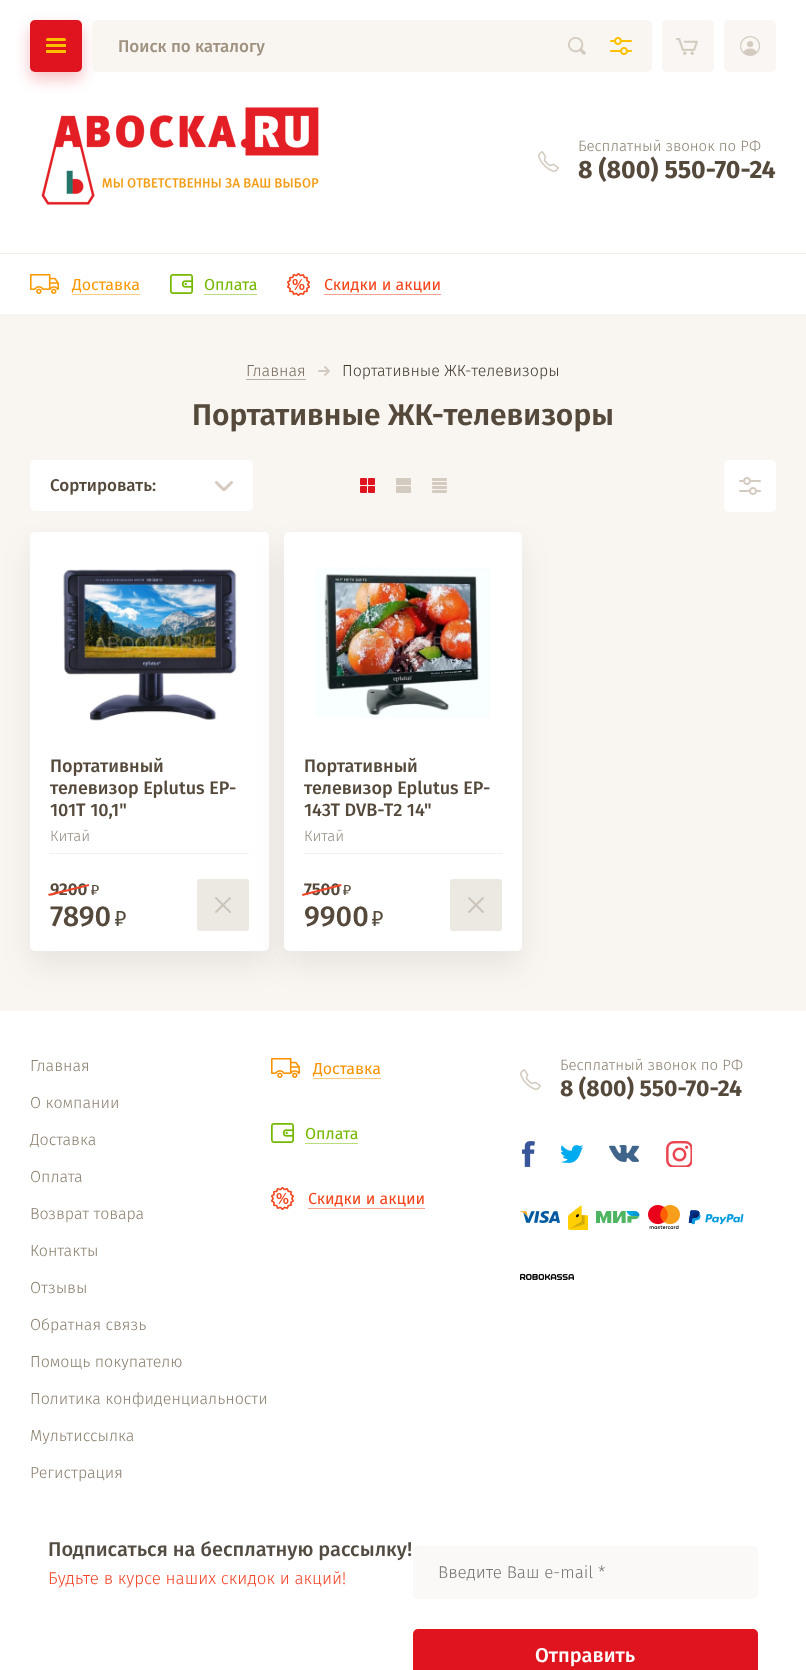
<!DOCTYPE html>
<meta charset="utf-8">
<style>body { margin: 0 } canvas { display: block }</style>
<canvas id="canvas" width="806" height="1670"></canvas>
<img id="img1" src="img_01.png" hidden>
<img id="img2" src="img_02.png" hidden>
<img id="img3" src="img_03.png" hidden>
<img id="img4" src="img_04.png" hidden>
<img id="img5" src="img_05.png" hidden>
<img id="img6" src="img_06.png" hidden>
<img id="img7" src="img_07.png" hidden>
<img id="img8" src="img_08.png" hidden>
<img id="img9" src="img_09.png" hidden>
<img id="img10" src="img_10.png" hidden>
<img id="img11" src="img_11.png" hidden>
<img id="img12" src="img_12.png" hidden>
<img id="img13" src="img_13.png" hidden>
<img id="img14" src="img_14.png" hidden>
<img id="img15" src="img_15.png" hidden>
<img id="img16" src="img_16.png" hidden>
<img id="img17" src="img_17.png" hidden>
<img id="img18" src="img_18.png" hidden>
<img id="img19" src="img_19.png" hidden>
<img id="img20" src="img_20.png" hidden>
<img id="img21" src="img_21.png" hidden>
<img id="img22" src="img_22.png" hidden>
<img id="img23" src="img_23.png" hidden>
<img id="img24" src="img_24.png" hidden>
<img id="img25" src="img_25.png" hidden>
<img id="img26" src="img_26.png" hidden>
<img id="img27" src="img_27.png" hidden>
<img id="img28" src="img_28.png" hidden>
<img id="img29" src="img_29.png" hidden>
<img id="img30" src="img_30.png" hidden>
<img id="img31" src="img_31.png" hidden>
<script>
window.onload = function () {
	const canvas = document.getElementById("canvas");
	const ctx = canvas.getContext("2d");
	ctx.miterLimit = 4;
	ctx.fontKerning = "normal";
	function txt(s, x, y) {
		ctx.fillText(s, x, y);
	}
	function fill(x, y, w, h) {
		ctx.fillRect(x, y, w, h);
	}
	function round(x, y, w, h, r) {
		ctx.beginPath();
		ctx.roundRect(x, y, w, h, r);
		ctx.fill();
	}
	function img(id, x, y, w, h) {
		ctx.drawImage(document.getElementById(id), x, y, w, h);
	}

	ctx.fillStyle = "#F9F6F2";
	fill(0, 0, 806, 1670);
	ctx.fillStyle = "#FFFFFF";
	fill(0, 0, 806, 314);
	ctx.fillStyle = "rgba(223, 20, 30, 0.27)";
	ctx.filter = "blur(7.5px)";
	ctx.beginPath();
	ctx.roundRect(30, 27, 52, 52, 5);
	ctx.fill();
	ctx.filter = "none";
	ctx.fillStyle = "#DF141E";
	round(30, 20, 52, 52, 5);
	ctx.fillStyle = "#FFC000";
	fill(46, 44, 20, 3);
	round(46, 38, 20, 3, 1.5);
	fill(46, 50, 20, 3);
	ctx.fillStyle = "#F9F6F2";
	round(92, 20, 560, 52, 5);
	img("img1", 568, 37, 18, 18);
	img("img2", 610, 37, 22, 18);
	ctx.fillStyle = "#FAF6F3";
	round(662, 20, 52, 52, 5);
	img("img3", 676, 38, 22, 17);
	round(724, 20, 52, 52, 5);
	img("img4", 740, 36, 20, 20);
	img("img5", 41, 107, 278, 98);
	img("img6", 538, 151, 21, 21);
	ctx.fillStyle = "#F1EEE9";
	fill(0, 253, 806, 1);
	img("img7", 30, 274, 29, 20);
	ctx.fillStyle = "#FDCC80";
	fill(72, 294, 68, 1);
	img("img8", 170, 274, 23, 20);
	ctx.fillStyle = "#BADC80";
	fill(204, 294, 53, 1);
	img("img9", 287, 273, 23, 23);
	ctx.fillStyle = "#FAA18D";
	fill(324, 294, 117, 1);
	ctx.fillStyle = "#B5AFA6";
	fill(246, 379, 60, 1);
	img("img10", 318, 366, 12, 10);
	ctx.fillStyle = "#FFFFFF";
	fill(0, 1011, 806, 659);
	ctx.fillStyle = "rgba(0, 0, 0, 0.07)";
	ctx.filter = "blur(15px)";
	ctx.beginPath();
	ctx.roundRect(30, 547, 239, 419, 5);
	ctx.fill();
	ctx.filter = "none";
	ctx.fillStyle = "#FFFFFF";
	round(30, 532, 239, 419, 5);
	ctx.fillStyle = "#F3F1ED";
	fill(50, 853, 199, 1);
	ctx.fillStyle = "#ECE8E2";
	round(197, 879, 52, 52, 3);
	ctx.fillStyle = "rgba(0, 0, 0, 0.07)";
	ctx.filter = "blur(15px)";
	ctx.beginPath();
	ctx.roundRect(284, 547, 238, 419, 5);
	ctx.fill();
	ctx.filter = "none";
	ctx.fillStyle = "#FFFFFF";
	round(30, 460, 223, 51, 5);
	img("img11", 215, 481, 18, 10);
	img("img12", 360, 478, 15, 15);
	img("img13", 396, 478, 15, 15);
	img("img14", 432, 478, 15, 15);
	round(724, 460, 52, 52, 5);
	img("img15", 739, 477, 22, 18);
	img("img16", 63, 569, 174, 152);
	img("img17", 91, 885, 8, 10);
	img("img18", 115, 911, 11, 15);
	img("img19", 215, 897, 16, 16);
	round(284, 532, 238, 419, 5);
	img("img20", 315, 567, 175, 151);
	ctx.fillStyle = "#F3F1ED";
	fill(304, 853, 198, 1);
	img("img17", 343, 885, 8, 10);
	img("img18", 372, 911, 11, 15);
	ctx.fillStyle = "#ECE8E2";
	round(450, 879, 52, 52, 3);
	img("img19", 468, 897, 16, 16);
	img("img21", 271, 1058, 29, 20);
	ctx.fillStyle = "#FDC980";
	fill(313, 1078, 68, 1);
	img("img8", 271, 1123, 23, 20);
	ctx.fillStyle = "#BADC80";
	fill(305, 1143, 53, 1);
	img("img9", 271, 1187, 23, 23);
	ctx.fillStyle = "#FAA18D";
	fill(308, 1208, 117, 1);
	img("img6", 520, 1069, 21, 21);
	img("img22", 522, 1141, 13, 26);
	img("img23", 561, 1145, 22, 18);
	img("img24", 609, 1145, 30, 17);
	img("img25", 666, 1141, 26, 26);
	img("img26", 520, 1211, 40, 12);
	img("img27", 568, 1205, 20, 25);
	img("img28", 596, 1211, 44, 12);
	img("img29", 648, 1205, 32, 24);
	img("img30", 688, 1210, 56, 15);
	img("img31", 520, 1274, 54, 6);
	ctx.fillStyle = "#FAF9F7";
	round(413, 1546, 345, 53, 5);
	ctx.fillStyle = "#DF141E";
	round(413, 1629, 345, 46, 5);
	ctx.font = "500 17px Fira Sans";
	ctx.fillStyle = "#9F9280";
	txt("Поиск по каталогу", 118, 52);
	ctx.font = "300 15px Fira Sans";
	ctx.fillStyle = "#8C8171";
	txt("Бесплатный звонок по РФ", 578, 151);
	ctx.font = "bold 25px Fira Sans";
	ctx.fillStyle = "#54493B";
	txt("8 (800) 550-70-24", 578, 178);
	ctx.font = "16px Fira Sans";
	ctx.fillStyle = "#FA9800";
	txt("Доставка", 72, 290);
	ctx.fillStyle = "#75B800";
	txt("Оплата", 204, 290);
	ctx.fillStyle = "#F5431A";
	txt("Скидки и акции", 324, 290);
	ctx.font = "300 16px Fira Sans";
	ctx.fillStyle = "#776D60";
	txt("Главная", 246, 376);
	ctx.fillStyle = "#423A2E";
	txt("Портативные ЖК-телевизоры", 342, 376);
	ctx.font = "600 30px Fira Sans";
	ctx.fillStyle = "#54493B";
	txt("Портативные ЖК-телевизоры", 192, 425);
	ctx.font = "500 17px Fira Sans";
	txt("Сортировать:", 50, 491);
	ctx.font = "500 18px Fira Sans";
	txt("Портативный", 50, 772);
	txt("телевизор Eplutus EP-", 50, 794);
	txt("101T 10,1\"", 50, 816);
	ctx.font = "300 15px Fira Sans";
	ctx.fillStyle = "#958D83";
	txt("Китай", 50, 841);
	ctx.font = "600 17px Fira Sans";
	ctx.fillStyle = "#54493B";
	txt("9200", 50, 895);
	ctx.fillStyle = "#F54528";
	ctx.beginPath();
	ctx.moveTo(48, 894);
	ctx.lineTo(89, 884);
	ctx.lineTo(89, 886);
	ctx.lineTo(49, 896);
	ctx.closePath();
	ctx.fill();
	ctx.font = "500 29px Fira Sans";
	ctx.fillStyle = "#54493B";
	txt("7890", 50, 926);
	ctx.font = "500 18px Fira Sans";
	txt("Портативный", 304, 772);
	txt("телевизор Eplutus EP-", 304, 794);
	txt("143T DVB-T2 14\"", 304, 816);
	ctx.font = "300 15px Fira Sans";
	ctx.fillStyle = "#958D83";
	txt("Китай", 304, 841);
	ctx.font = "600 17px Fira Sans";
	ctx.fillStyle = "#54493B";
	txt("7500", 304, 895);
	ctx.fillStyle = "#F54528";
	ctx.beginPath();
	ctx.moveTo(302, 894);
	ctx.lineTo(341, 884);
	ctx.lineTo(341.5, 886);
	ctx.lineTo(302.5, 896);
	ctx.closePath();
	ctx.fill();
	ctx.font = "500 29px Fira Sans";
	ctx.fillStyle = "#54493B";
	txt("9900", 304, 926);
	ctx.font = "300 16px Fira Sans";
	ctx.fillStyle = "#8C8171";
	txt("Главная", 30, 1071);
	txt("О компании", 30, 1108);
	txt("Доставка", 30, 1145);
	txt("Оплата", 30, 1182);
	txt("Возврат товара", 30, 1219);
	txt("Контакты", 30, 1256);
	txt("Отзывы", 30, 1293);
	txt("Обратная связь", 30, 1330);
	txt("Помощь покупателю", 30, 1367);
	txt("Политика конфиденциальности", 30, 1404);
	txt("Мультиссылка", 30, 1441);
	txt("Регистрация", 30, 1478);
	ctx.font = "16px Fira Sans";
	ctx.fillStyle = "#FA9200";
	txt("Доставка", 313, 1074);
	ctx.fillStyle = "#75B800";
	txt("Оплата", 305, 1139);
	ctx.fillStyle = "#F5431A";
	txt("Скидки и акции", 308, 1204);
	ctx.font = "300 15px Fira Sans";
	ctx.fillStyle = "#8C8171";
	txt("Бесплатный звонок по РФ", 560, 1070);
	ctx.font = "bold 23px Fira Sans";
	ctx.fillStyle = "#54493B";
	txt("8 (800) 550-70-24", 560, 1096);
	ctx.font = "500 20px Fira Sans";
	ctx.fillStyle = "#534C42";
	txt("Подписаться на бесплатную рассылку!", 48, 1556);
	ctx.font = "300 17px Fira Sans";
	ctx.fillStyle = "#F54528";
	txt("Будьте в курсе наших скидок и акций!", 48, 1584);
	ctx.fillStyle = "#757575";
	txt("Введите Ваш e-mail *", 438, 1578);
	ctx.font = "500 20px Fira Sans";
	ctx.fillStyle = "#FFFFFF";
	txt("Отправить", 535, 1662);
};
</script>
